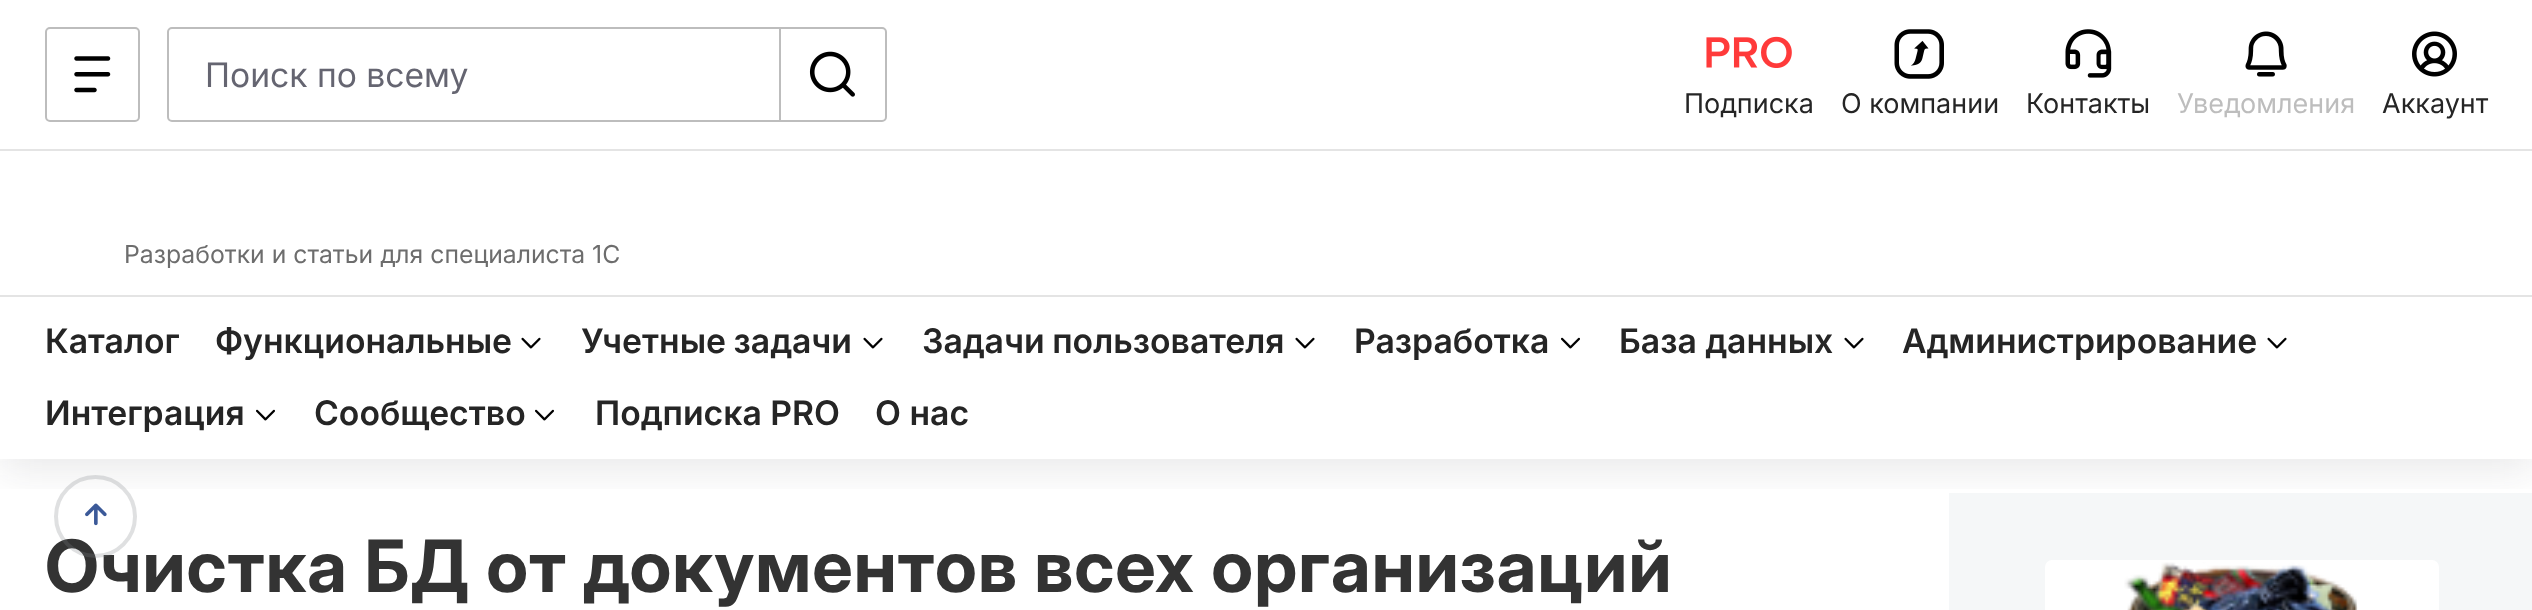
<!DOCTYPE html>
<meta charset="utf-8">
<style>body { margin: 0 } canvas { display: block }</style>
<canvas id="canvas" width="2532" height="610"></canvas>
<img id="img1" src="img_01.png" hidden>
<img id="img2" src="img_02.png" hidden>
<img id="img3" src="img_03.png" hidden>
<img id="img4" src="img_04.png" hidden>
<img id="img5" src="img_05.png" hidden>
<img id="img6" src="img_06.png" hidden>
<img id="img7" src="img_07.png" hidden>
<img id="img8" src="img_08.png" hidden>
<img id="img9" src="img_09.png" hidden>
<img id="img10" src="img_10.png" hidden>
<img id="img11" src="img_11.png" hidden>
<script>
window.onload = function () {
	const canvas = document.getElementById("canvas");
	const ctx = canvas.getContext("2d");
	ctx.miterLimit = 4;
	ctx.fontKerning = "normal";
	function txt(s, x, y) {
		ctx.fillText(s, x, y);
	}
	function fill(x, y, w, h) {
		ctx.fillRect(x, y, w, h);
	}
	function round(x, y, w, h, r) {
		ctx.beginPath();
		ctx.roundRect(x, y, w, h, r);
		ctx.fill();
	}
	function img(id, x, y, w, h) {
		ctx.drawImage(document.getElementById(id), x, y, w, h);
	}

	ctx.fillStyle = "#FFFFFF";
	fill(0, 0, 2532, 610);
	ctx.fillStyle = "#F5F7F8";
	fill(1949, 493, 583, 117);
	ctx.save();
	ctx.beginPath();
	ctx.rect(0, 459, 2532, 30);
	ctx.clip();
	ctx.fillStyle = "rgba(56, 60, 66, 0.12)";
	ctx.filter = "blur(21.5px)";
	ctx.beginPath();
	ctx.rect(0, 9, 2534, 459);
	ctx.fill();
	ctx.filter = "none";
	ctx.restore();
	ctx.fillStyle = "#E4E4E4";
	fill(0, 149, 2532, 2);
	ctx.beginPath();
	ctx.roundRect(46, 28, 93, 93, 4);
	ctx.strokeStyle = "#BDBDBD";
	ctx.lineWidth = 2;
	ctx.stroke();
	img("img1", 74, 56, 37, 37);
	ctx.beginPath();
	ctx.roundRect(780, 28, 106, 93, [0, 4, 4, 0]);
	ctx.stroke();
	ctx.fillStyle = "#FFFFFF";
	ctx.beginPath();
	ctx.roundRect(168, 28, 612, 93, [4, 0, 0, 4]);
	ctx.fill();
	ctx.stroke();
	img("img2", 809, 51, 46, 46);
	img("img3", 1706, 36, 86, 32);
	img("img4", 1894, 29, 50, 50);
	img("img5", 2065, 29, 47, 49);
	img("img6", 2245, 31, 42, 46);
	img("img7", 2412, 31, 45, 46);
	ctx.fillStyle = "#E4E4E4";
	fill(0, 295, 2532, 2);
	img("img8", 521, 337, 20, 12);
	img("img8", 863, 337, 20, 12);
	img("img8", 1295, 337, 20, 12);
	img("img9", 1561, 337, 19, 12);
	img("img8", 1844, 337, 20, 12);
	img("img8", 2267, 337, 20, 12);
	img("img9", 256, 409, 19, 12);
	img("img9", 535, 409, 19, 12);
	ctx.fillStyle = "#FFFFFF";
	round(2045, 560, 394, 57, 7);
	img("img10", 2124, 562, 234, 48);
	ctx.font = "33.75px 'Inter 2'";
	ctx.fillStyle = "#656571";
	txt("Поиск по всему", 205, 87);
	ctx.font = "27px Inter";
	ctx.fillStyle = "#252525";
	txt("Подписка", 1684, 113);
	txt("О компании", 1841, 113);
	txt("Контакты", 2026, 113);
	ctx.fillStyle = "#BDBDBD";
	txt("Уведомления", 2177, 113);
	ctx.fillStyle = "#252525";
	txt("Аккаунт", 2382, 113);
	ctx.font = "24.75px Inter";
	ctx.fillStyle = "#6D6D6D";
	txt("Разработки и статьи для специалиста 1С", 124, 263);
	ctx.font = "600 33.75px Inter";
	ctx.fillStyle = "#252525";
	txt("Каталог", 45, 353);
	txt("Функциональные", 215, 353);
	ctx.wordSpacing = "-1px";
	txt("Учетные задачи", 581, 353);
	txt("Задачи пользователя", 922, 353);
	ctx.wordSpacing = "0px";
	txt("Разработка", 1354, 353);
	txt("База данных", 1619, 353);
	txt("Администрирование", 1902, 353);
	txt("Интеграция", 45, 425);
	txt("Сообщество", 314, 425);
	txt("Подписка PRO", 595, 425);
	txt("О нас", 875, 425);
	ctx.letterSpacing = "1.1px";
	ctx.font = "bold 72px Inter";
	ctx.fillStyle = "#333333";
	txt("Очистка БД от документов всех организаций", 45, 592);
	ctx.beginPath();
	ctx.arc(95.5, 516.5, 39.5, 0, Math.PI * 2);
	ctx.strokeStyle = "rgba(128, 130, 134, 0.25)";
	ctx.lineWidth = 4;
	ctx.stroke();
	img("img11", 85, 503, 22, 23);
};
</script>
